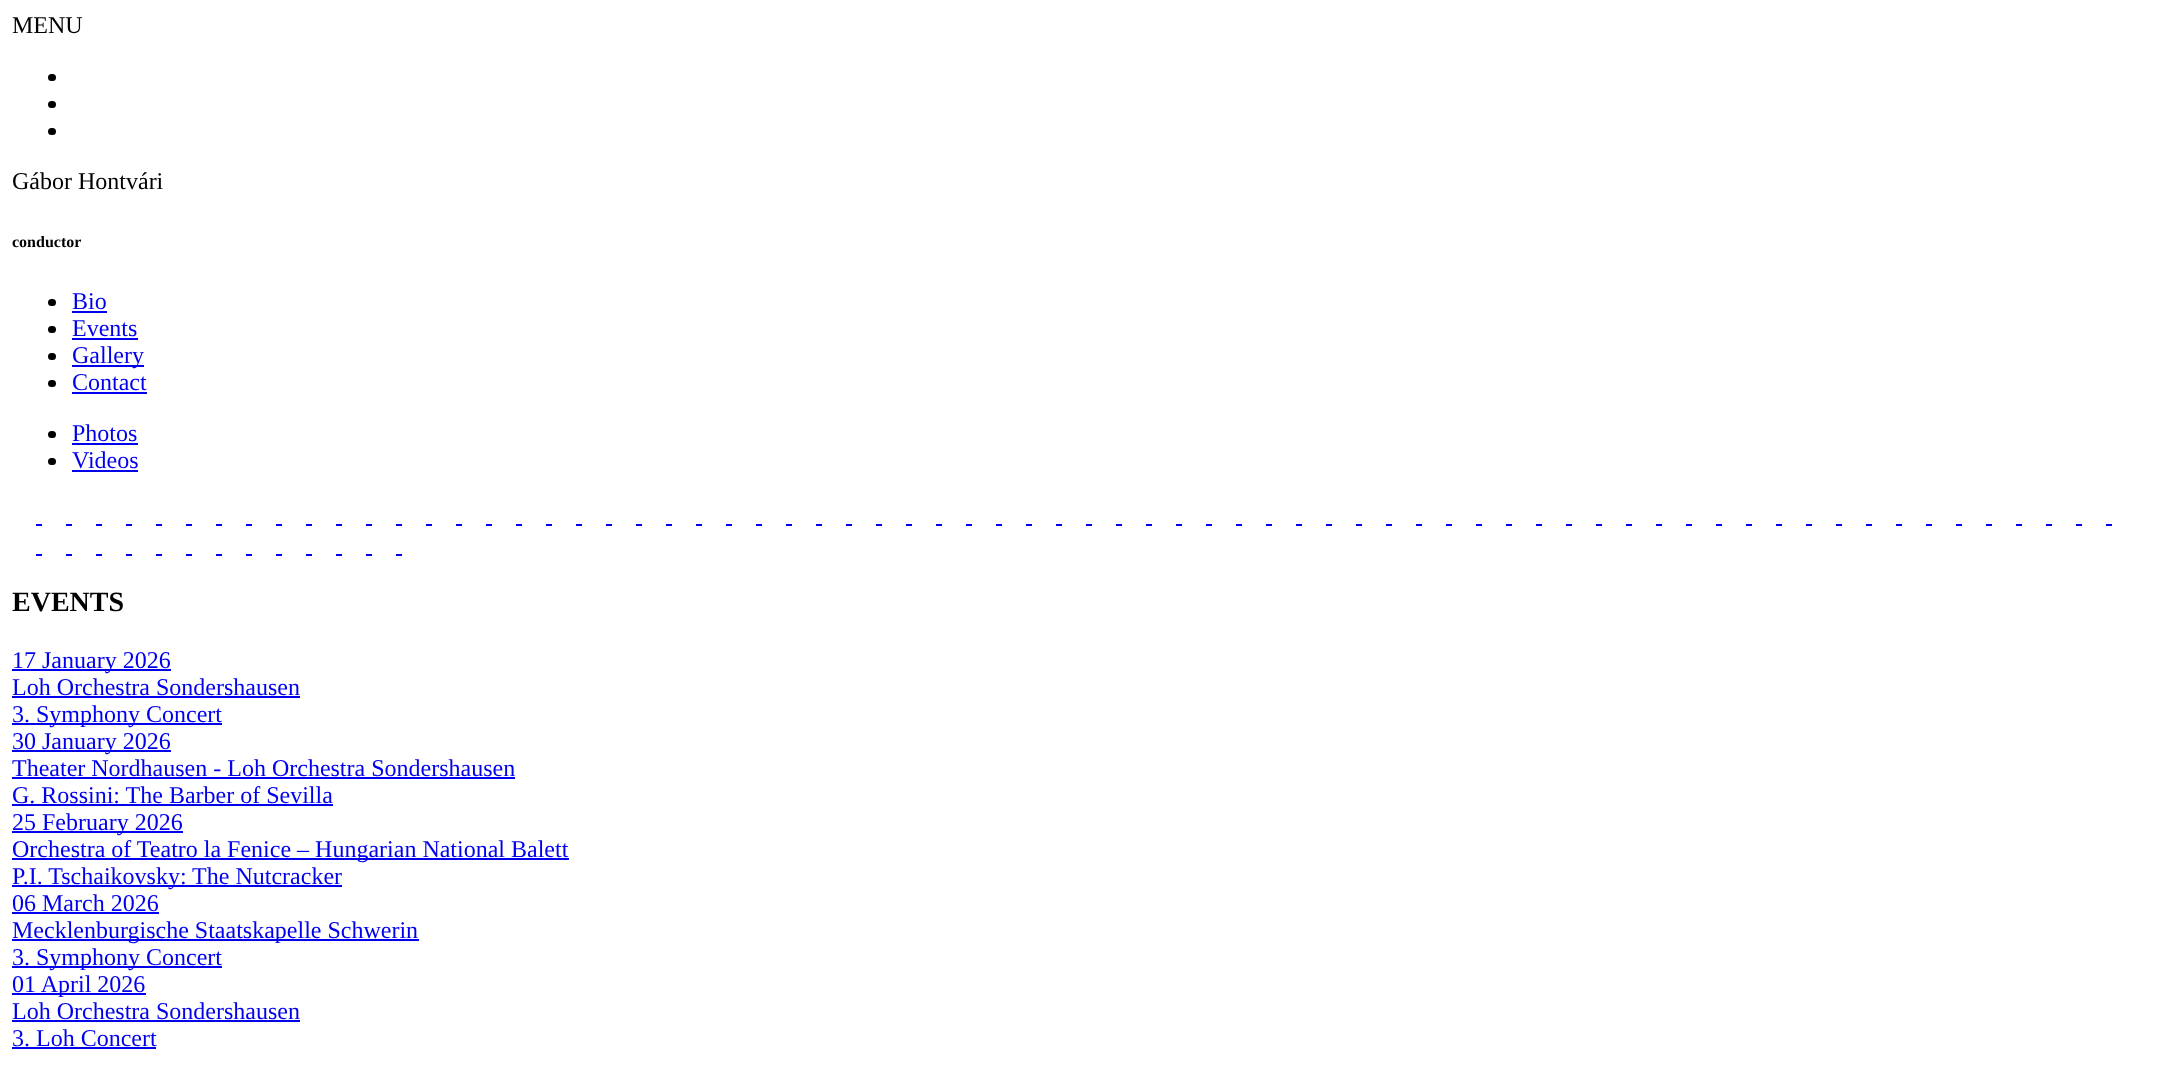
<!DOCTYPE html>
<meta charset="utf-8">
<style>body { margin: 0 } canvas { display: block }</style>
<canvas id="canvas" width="2157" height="1072"></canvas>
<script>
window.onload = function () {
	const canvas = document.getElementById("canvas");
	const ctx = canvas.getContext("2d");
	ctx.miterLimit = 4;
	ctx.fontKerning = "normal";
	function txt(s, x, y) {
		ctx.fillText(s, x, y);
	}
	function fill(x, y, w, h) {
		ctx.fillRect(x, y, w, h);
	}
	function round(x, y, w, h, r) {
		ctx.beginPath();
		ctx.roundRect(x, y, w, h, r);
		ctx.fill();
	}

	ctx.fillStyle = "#FFFFFF";
	fill(0, 0, 2157, 1072);
	ctx.fillStyle = "#000000";
	round(48, 74, 8, 7, 3.5);
	round(48, 101, 8, 7, 3.5);
	round(48, 128, 8, 7, 3.5);
	round(48, 299, 8, 7, 3.5);
	ctx.fillStyle = "#0000EE";
	fill(72, 311, 35, 2);
	ctx.fillStyle = "#000000";
	round(48, 326, 8, 7, 3.5);
	ctx.fillStyle = "#0000EE";
	fill(72, 338, 66, 2);
	ctx.fillStyle = "#000000";
	round(48, 353, 8, 7, 3.5);
	ctx.fillStyle = "#0000EE";
	fill(72, 365, 72, 2);
	ctx.fillStyle = "#000000";
	round(48, 380, 8, 7, 3.5);
	ctx.fillStyle = "#0000EE";
	fill(72, 392, 75, 2);
	ctx.fillStyle = "#000000";
	round(48, 431, 8, 7, 3.5);
	ctx.fillStyle = "#0000EE";
	fill(72, 443, 66, 2);
	ctx.fillStyle = "#000000";
	round(48, 458, 8, 7, 3.5);
	ctx.fillStyle = "#0000EE";
	fill(72, 470, 66, 2);
	fill(36, 524, 6, 2);
	fill(66, 524, 6, 2);
	fill(96, 524, 6, 2);
	fill(126, 524, 6, 2);
	fill(156, 524, 6, 2);
	fill(186, 524, 6, 2);
	fill(216, 524, 6, 2);
	fill(246, 524, 6, 2);
	fill(276, 524, 6, 2);
	fill(306, 524, 6, 2);
	fill(336, 524, 6, 2);
	fill(366, 524, 6, 2);
	fill(396, 524, 6, 2);
	fill(426, 524, 6, 2);
	fill(456, 524, 6, 2);
	fill(486, 524, 6, 2);
	fill(516, 524, 6, 2);
	fill(546, 524, 6, 2);
	fill(576, 524, 6, 2);
	fill(606, 524, 6, 2);
	fill(636, 524, 6, 2);
	fill(666, 524, 6, 2);
	fill(696, 524, 6, 2);
	fill(726, 524, 6, 2);
	fill(756, 524, 6, 2);
	fill(786, 524, 6, 2);
	fill(816, 524, 6, 2);
	fill(846, 524, 6, 2);
	fill(876, 524, 6, 2);
	fill(906, 524, 6, 2);
	fill(936, 524, 6, 2);
	fill(966, 524, 6, 2);
	fill(996, 524, 6, 2);
	fill(1026, 524, 6, 2);
	fill(1056, 524, 6, 2);
	fill(1086, 524, 6, 2);
	fill(1116, 524, 6, 2);
	fill(1146, 524, 6, 2);
	fill(1176, 524, 6, 2);
	fill(1206, 524, 6, 2);
	fill(1236, 524, 6, 2);
	fill(1266, 524, 6, 2);
	fill(1296, 524, 6, 2);
	fill(1326, 524, 6, 2);
	fill(1356, 524, 6, 2);
	fill(1386, 524, 6, 2);
	fill(1416, 524, 6, 2);
	fill(1446, 524, 6, 2);
	fill(1476, 524, 6, 2);
	fill(1506, 524, 6, 2);
	fill(1536, 524, 6, 2);
	fill(1566, 524, 6, 2);
	fill(1596, 524, 6, 2);
	fill(1626, 524, 6, 2);
	fill(1656, 524, 6, 2);
	fill(1686, 524, 6, 2);
	fill(1716, 524, 6, 2);
	fill(1746, 524, 6, 2);
	fill(1776, 524, 6, 2);
	fill(1806, 524, 6, 2);
	fill(1836, 524, 6, 2);
	fill(1866, 524, 6, 2);
	fill(1896, 524, 6, 2);
	fill(1926, 524, 6, 2);
	fill(1956, 524, 6, 2);
	fill(1986, 524, 6, 2);
	fill(2016, 524, 6, 2);
	fill(2046, 524, 6, 2);
	fill(2076, 524, 6, 2);
	fill(2106, 524, 6, 2);
	fill(36, 554, 6, 2);
	fill(66, 554, 6, 2);
	fill(96, 554, 6, 2);
	fill(126, 554, 6, 2);
	fill(156, 554, 6, 2);
	fill(186, 554, 6, 2);
	fill(216, 554, 6, 2);
	fill(246, 554, 6, 2);
	fill(276, 554, 6, 2);
	fill(306, 554, 6, 2);
	fill(336, 554, 6, 2);
	fill(366, 554, 6, 2);
	fill(396, 554, 6, 2);
	fill(12, 669, 159, 2);
	fill(12, 696, 288, 2);
	fill(12, 723, 210, 2);
	fill(12, 750, 159, 2);
	fill(12, 777, 503, 2);
	fill(12, 804, 321, 2);
	fill(12, 831, 171, 2);
	fill(12, 858, 557, 2);
	fill(12, 885, 330, 2);
	fill(12, 912, 147, 2);
	fill(12, 939, 407, 2);
	fill(12, 966, 210, 2);
	fill(12, 993, 134, 2);
	fill(12, 1020, 288, 2);
	fill(12, 1047, 144, 2);
	ctx.font = "24px Liberation Serif";
	ctx.fillStyle = "#000000";
	txt("MENU", 12, 33);
	txt("Gábor Hontvári", 12, 189);
	ctx.font = "bold 16px Liberation Serif";
	txt("conductor", 12, 247);
	ctx.font = "24px Liberation Serif";
	ctx.fillStyle = "#0000EE";
	txt("Bio", 72, 309);
	txt("Events", 72, 336);
	txt("Gallery", 72, 363);
	txt("Contact", 72, 390);
	txt("Photos", 72, 441);
	txt("Videos", 72, 468);
	ctx.font = "bold 28px Liberation Serif";
	ctx.fillStyle = "#000000";
	txt("EVENTS", 12, 611);
	ctx.font = "24px Liberation Serif";
	ctx.fillStyle = "#0000EE";
	txt("17 January 2026", 12, 668);
	txt("Loh Orchestra Sondershausen", 12, 695);
	txt("3. Symphony Concert", 12, 722);
	txt("30 January 2026", 12, 749);
	txt("Theater Nordhausen - Loh Orchestra Sondershausen", 12, 776);
	txt("G. Rossini: The Barber of Sevilla", 12, 803);
	txt("25 February 2026", 12, 830);
	txt("Orchestra of Teatro la Fenice – Hungarian National Balett", 12, 857);
	txt("P.I. Tschaikovsky: The Nutcracker", 12, 884);
	txt("06 March 2026", 12, 911);
	txt("Mecklenburgische Staatskapelle Schwerin", 12, 938);
	txt("3. Symphony Concert", 12, 965);
	txt("01 April 2026", 12, 992);
	txt("Loh Orchestra Sondershausen", 12, 1019);
	txt("3. Loh Concert", 12, 1046);
};
</script>
